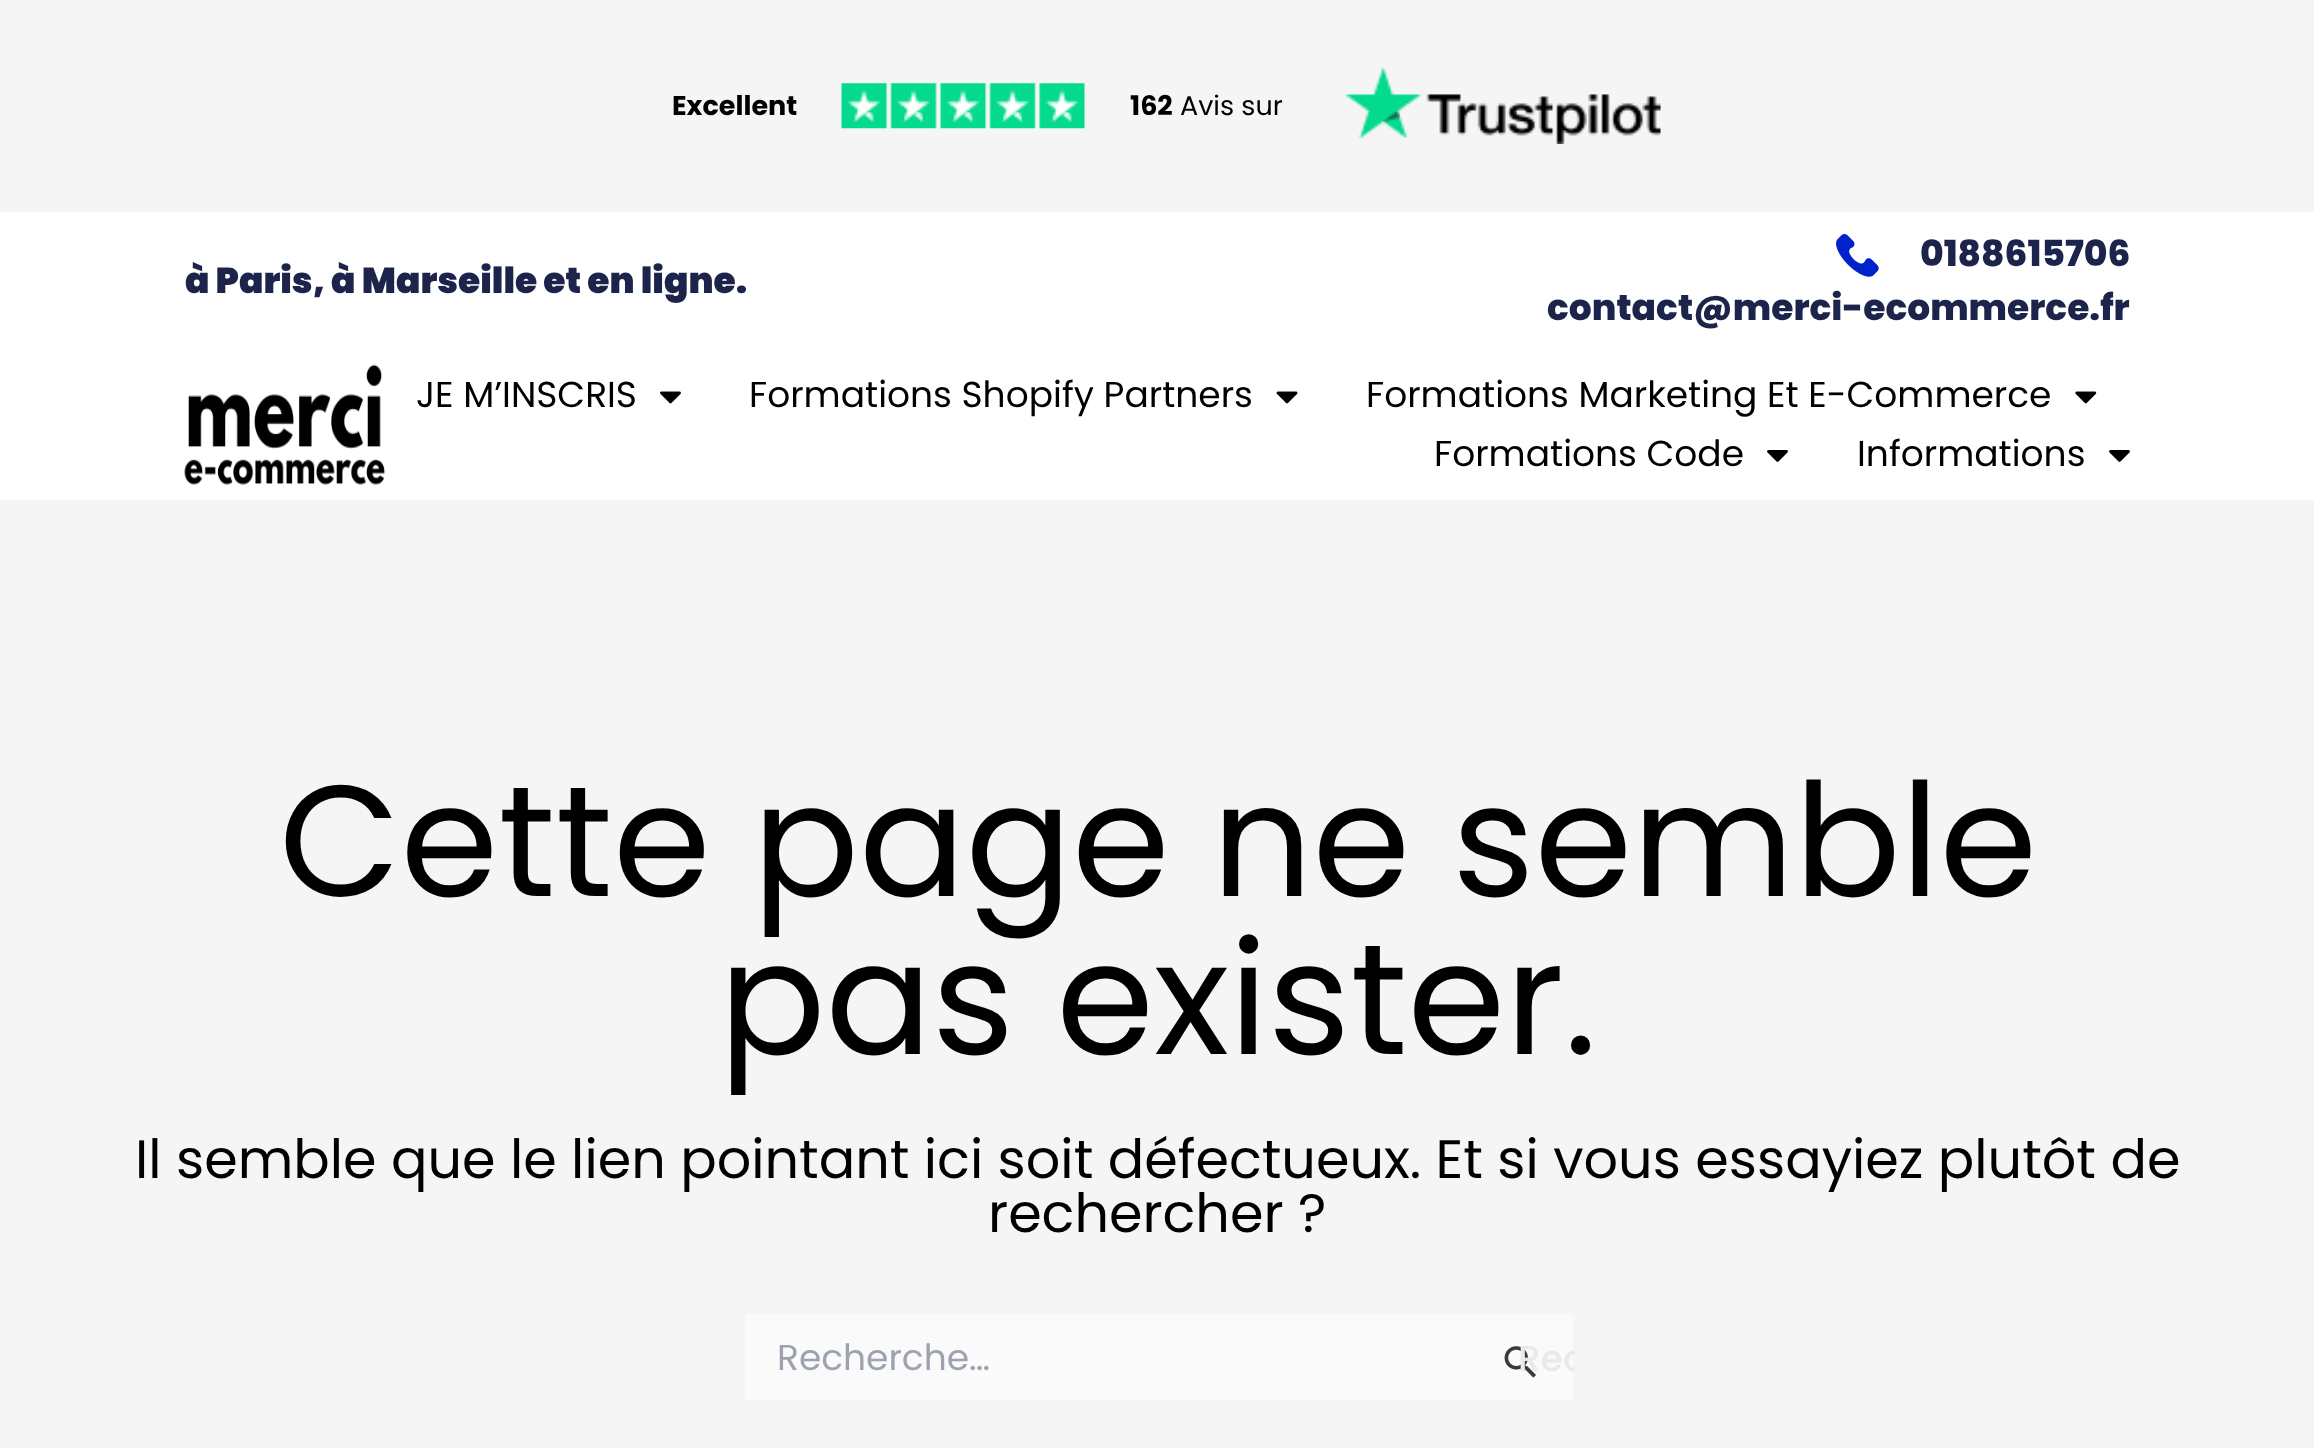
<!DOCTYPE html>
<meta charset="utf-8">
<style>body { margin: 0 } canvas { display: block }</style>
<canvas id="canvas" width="2314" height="1448"></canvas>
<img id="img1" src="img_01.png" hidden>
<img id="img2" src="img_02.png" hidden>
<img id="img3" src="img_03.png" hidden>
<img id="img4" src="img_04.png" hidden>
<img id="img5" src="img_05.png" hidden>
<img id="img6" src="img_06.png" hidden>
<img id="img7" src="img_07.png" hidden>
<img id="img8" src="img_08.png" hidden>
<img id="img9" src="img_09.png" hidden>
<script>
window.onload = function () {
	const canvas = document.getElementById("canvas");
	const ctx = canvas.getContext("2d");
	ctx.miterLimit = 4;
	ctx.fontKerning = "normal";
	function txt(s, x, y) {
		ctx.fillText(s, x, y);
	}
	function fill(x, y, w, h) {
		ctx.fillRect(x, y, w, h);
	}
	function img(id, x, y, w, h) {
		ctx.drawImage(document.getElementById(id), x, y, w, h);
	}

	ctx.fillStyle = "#F5F5F5";
	fill(0, 0, 2314, 1448);
	img("img1", 841, 83, 244, 46);
	img("img2", 1345, 67, 316, 77);
	ctx.fillStyle = "#FFFFFF";
	fill(0, 212, 2314, 288);
	img("img3", 1836, 234, 43, 43);
	img("img4", 184, 364, 201, 121);
	img("img5", 660, 391, 21, 13);
	img("img6", 1276, 391, 22, 13);
	img("img7", 2075, 391, 22, 13);
	img("img8", 1767, 450, 21, 12);
	img("img8", 2109, 450, 21, 12);
	ctx.fillStyle = "#FAFAFA";
	ctx.beginPath();
	ctx.roundRect(744, 1313, 830, 88, 4);
	ctx.fill();
	ctx.strokeStyle = "#F5F5F5";
	ctx.lineWidth = 2;
	ctx.stroke();
	img("img9", 1504, 1346, 32, 32);
	ctx.font = "bold 27px Poppins";
	ctx.fillStyle = "#000000";
	txt("Excellent", 672, 115);
	txt("162", 1130, 115);
	ctx.font = "27px Poppins";
	txt("Avis sur", 1180, 115);
	ctx.font = "900 36px Poppins";
	ctx.fillStyle = "#1C244B";
	txt("à Paris, à Marseille et en ligne.", 185, 293);
	ctx.font = "800 36px Poppins";
	txt("0188615706", 1920, 266);
	txt("contact@merci-ecommerce.fr", 1547, 320);
	ctx.font = "36px Poppins";
	ctx.fillStyle = "#000000";
	txt("JE M’INSCRIS", 416, 407);
	txt("Formations Shopify Partners", 749, 407);
	txt("Formations Marketing Et E-Commerce", 1366, 407);
	txt("Formations Code", 1434, 466);
	txt("Informations", 1857, 466);
	ctx.font = "157.5px Poppins";
	txt("Cette page ne semble", 279, 896);
	txt("pas exister.", 719, 1054);
	ctx.font = "54px Poppins";
	txt("Il semble que le lien pointant ici soit défectueux. Et si vous essayiez plutôt de", 135, 1178);
	txt("rechercher ?", 988, 1232);
	ctx.font = "36px Poppins";
	ctx.fillStyle = "#9CA3AF";
	txt("Recherche…", 777, 1370);
	ctx.save();
	ctx.beginPath();
	ctx.roundRect(1474, 1312, 101, 94, 5);
	ctx.clip();
	ctx.font = "500 36px Poppins";
	ctx.fillStyle = "#E9E9E9";
	txt("Rec", 1518, 1371);
	ctx.restore();
};
</script>
